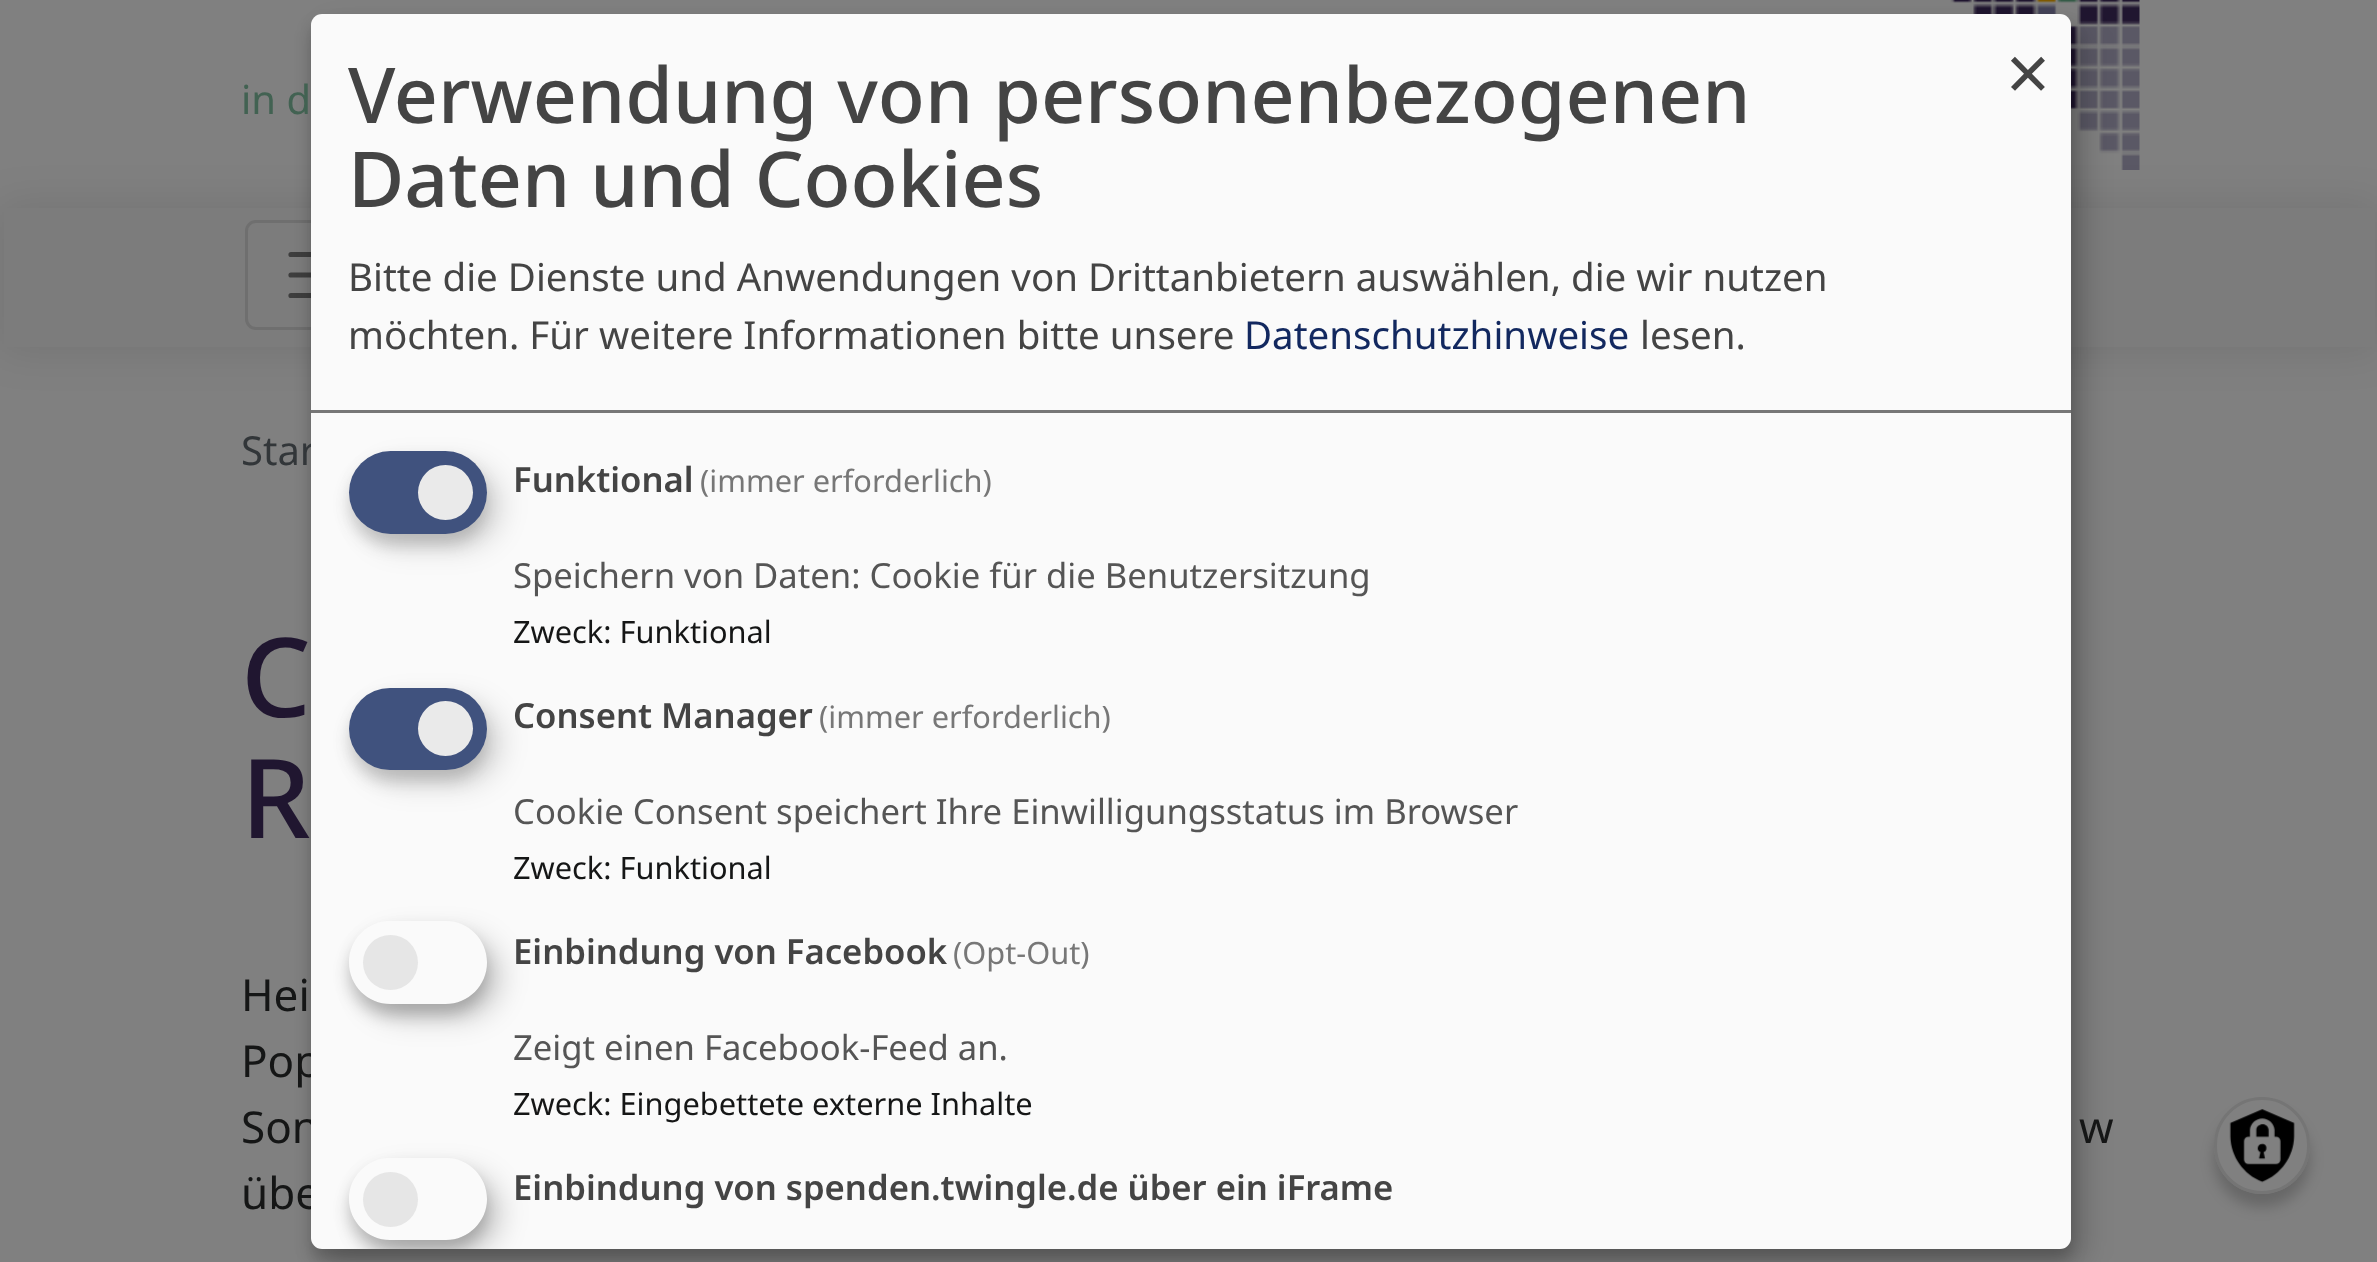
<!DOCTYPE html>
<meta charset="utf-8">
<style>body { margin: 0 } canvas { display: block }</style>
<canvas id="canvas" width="2377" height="1262"></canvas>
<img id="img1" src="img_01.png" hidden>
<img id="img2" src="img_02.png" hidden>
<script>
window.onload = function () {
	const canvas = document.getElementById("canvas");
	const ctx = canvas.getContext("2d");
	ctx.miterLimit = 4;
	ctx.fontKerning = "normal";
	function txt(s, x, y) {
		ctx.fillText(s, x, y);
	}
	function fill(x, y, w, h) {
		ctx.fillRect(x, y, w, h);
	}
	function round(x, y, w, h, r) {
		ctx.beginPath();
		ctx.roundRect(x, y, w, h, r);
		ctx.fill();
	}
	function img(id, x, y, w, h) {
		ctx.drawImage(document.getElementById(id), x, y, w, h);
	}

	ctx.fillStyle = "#808080";
	fill(0, 0, 2377, 1262);
	img("img1", 1950, 0, 190, 170);
	ctx.fillStyle = "rgba(0, 0, 0, 0.09)";
	ctx.filter = "blur(20.5px)";
	ctx.beginPath();
	ctx.rect(0, 204, 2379, 148);
	ctx.fill();
	ctx.filter = "none";
	ctx.fillStyle = "#7C7C7C";
	fill(4, 208, 2371, 139);
	ctx.beginPath();
	ctx.roundRect(246.5, 221.5, 151, 107, 9.5);
	ctx.strokeStyle = "#6F6F6F";
	ctx.lineWidth = 3;
	ctx.stroke();
	ctx.beginPath();
	ctx.moveTo(291, 254.5);
	ctx.lineTo(352.5, 254.5);
	ctx.moveTo(291, 275);
	ctx.lineTo(352.5, 275);
	ctx.moveTo(291, 295.5);
	ctx.lineTo(352.5, 295.5);
	ctx.strokeStyle = "#3E3E3E";
	ctx.lineWidth = 5.2;
	ctx.lineCap = "round";
	ctx.stroke();
	ctx.fillStyle = "rgba(0, 0, 0, 0.19)";
	ctx.filter = "blur(14px)";
	ctx.beginPath();
	ctx.roundRect(325, 28, 1760, 1234, 11);
	ctx.fill();
	ctx.filter = "none";
	ctx.fillStyle = "rgba(0, 0, 0, 0.2)";
	ctx.filter = "blur(8px)";
	ctx.beginPath();
	ctx.roundRect(311, 25, 1760, 1235, 11);
	ctx.fill();
	ctx.filter = "none";
	ctx.filter = "blur(7px)";
	ctx.beginPath();
	ctx.roundRect(2214, 1111, 96, 96, 48);
	ctx.fill();
	ctx.filter = "none";
	ctx.fillStyle = "#808080";
	round(2214, 1097, 96, 97, 48);
	img("img2", 2229, 1109, 66, 74);
	ctx.beginPath();
	ctx.roundRect(2215.5, 1098.5, 93, 94, 46.5);
	ctx.strokeStyle = "#757575";
	ctx.lineWidth = 3;
	ctx.stroke();
	ctx.font = "40px Noto Sans";
	ctx.fillStyle = "#426252";
	txt("in d", 241, 114);
	ctx.fillStyle = "#323639";
	txt("Star", 241, 465);
	ctx.font = "500 110px Noto Sans";
	ctx.fillStyle = "#201630";
	txt("C", 241, 717);
	txt("R", 241, 838);
	ctx.font = "44px Noto Sans";
	ctx.fillStyle = "#151616";
	txt("Hei", 241, 1011);
	txt("Pop", 241, 1077);
	txt("Son", 241, 1143);
	txt("w", 2079, 1143);
	txt("übe", 241, 1209);
	ctx.fillStyle = "#FAFAFA";
	round(311, 14, 1760, 1235, 11);
	ctx.font = "77px Noto Sans";
	ctx.fillStyle = "#444444";
	txt("×", 2006, 101);
	ctx.save();
	ctx.beginPath();
	ctx.roundRect(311, 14, 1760, 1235, 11);
	ctx.clip();
	ctx.beginPath();
	ctx.moveTo(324, 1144);
	ctx.lineTo(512, 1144);
	ctx.lineTo(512, 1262);
	ctx.lineTo(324, 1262);
	ctx.closePath();
	ctx.moveTo(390, 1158);
	ctx.lineTo(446, 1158);
	ctx.bezierCurveTo(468.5, 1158, 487, 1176.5, 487, 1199);
	ctx.bezierCurveTo(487, 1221.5, 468.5, 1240, 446, 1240);
	ctx.lineTo(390, 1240);
	ctx.bezierCurveTo(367.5, 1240, 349, 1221.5, 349, 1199);
	ctx.bezierCurveTo(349, 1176.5, 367.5, 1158, 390, 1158);
	ctx.closePath();
	ctx.clip("evenodd");
	ctx.fillStyle = "rgba(0, 0, 0, 0.2)";
	ctx.filter = "blur(8px)";
	ctx.beginPath();
	ctx.roundRect(349, 1169, 138, 82, 41);
	ctx.fill();
	ctx.filter = "none";
	ctx.restore();
	ctx.save();
	ctx.beginPath();
	ctx.roundRect(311, 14, 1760, 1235, 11);
	ctx.clip();
	ctx.beginPath();
	ctx.moveTo(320, 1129);
	ctx.lineTo(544, 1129);
	ctx.lineTo(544, 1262);
	ctx.lineTo(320, 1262);
	ctx.closePath();
	ctx.moveTo(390, 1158);
	ctx.lineTo(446, 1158);
	ctx.bezierCurveTo(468.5, 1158, 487, 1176.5, 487, 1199);
	ctx.bezierCurveTo(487, 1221.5, 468.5, 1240, 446, 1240);
	ctx.lineTo(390, 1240);
	ctx.bezierCurveTo(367.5, 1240, 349, 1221.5, 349, 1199);
	ctx.bezierCurveTo(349, 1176.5, 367.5, 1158, 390, 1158);
	ctx.closePath();
	ctx.clip("evenodd");
	ctx.fillStyle = "rgba(0, 0, 0, 0.19)";
	ctx.filter = "blur(14px)";
	ctx.beginPath();
	ctx.roundRect(363, 1172, 138, 82, 41);
	ctx.fill();
	ctx.filter = "none";
	ctx.restore();
	ctx.fillStyle = "#E6E6E6";
	ctx.beginPath();
	ctx.arc(390.5, 1199.5, 27.5, 0, Math.PI * 2);
	ctx.fill();
	ctx.font = "600 34.65px Noto Sans";
	ctx.fillStyle = "#444444";
	txt("Einbindung von spenden.twingle.de über ein iFrame", 513, 1200);
	ctx.save();
	ctx.beginPath();
	ctx.moveTo(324, 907);
	ctx.lineTo(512, 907);
	ctx.lineTo(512, 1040);
	ctx.lineTo(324, 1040);
	ctx.closePath();
	ctx.moveTo(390.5, 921);
	ctx.lineTo(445.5, 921);
	ctx.bezierCurveTo(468.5, 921, 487, 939.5, 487, 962.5);
	ctx.bezierCurveTo(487, 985.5, 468.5, 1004, 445.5, 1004);
	ctx.lineTo(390.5, 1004);
	ctx.bezierCurveTo(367.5, 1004, 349, 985.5, 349, 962.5);
	ctx.bezierCurveTo(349, 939.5, 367.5, 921, 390.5, 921);
	ctx.closePath();
	ctx.clip("evenodd");
	ctx.fillStyle = "rgba(0, 0, 0, 0.2)";
	ctx.filter = "blur(8px)";
	ctx.beginPath();
	ctx.roundRect(349, 932, 138, 83, 41.5);
	ctx.fill();
	ctx.filter = "none";
	ctx.restore();
	ctx.save();
	ctx.beginPath();
	ctx.moveTo(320, 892);
	ctx.lineTo(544, 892);
	ctx.lineTo(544, 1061);
	ctx.lineTo(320, 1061);
	ctx.closePath();
	ctx.moveTo(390.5, 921);
	ctx.lineTo(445.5, 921);
	ctx.bezierCurveTo(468.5, 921, 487, 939.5, 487, 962.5);
	ctx.bezierCurveTo(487, 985.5, 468.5, 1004, 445.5, 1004);
	ctx.lineTo(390.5, 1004);
	ctx.bezierCurveTo(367.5, 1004, 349, 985.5, 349, 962.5);
	ctx.bezierCurveTo(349, 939.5, 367.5, 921, 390.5, 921);
	ctx.closePath();
	ctx.clip("evenodd");
	ctx.fillStyle = "rgba(0, 0, 0, 0.19)";
	ctx.filter = "blur(14px)";
	ctx.beginPath();
	ctx.roundRect(363, 935, 138, 83, 41.5);
	ctx.fill();
	ctx.filter = "none";
	ctx.restore();
	ctx.fillStyle = "#E6E6E6";
	ctx.beginPath();
	ctx.arc(390.5, 962.5, 27.5, 0, Math.PI * 2);
	ctx.fill();
	ctx.font = "30.75px Noto Sans";
	ctx.fillStyle = "#151616";
	txt("Zweck: Eingebettete externe Inhalte", 513, 1115);
	ctx.font = "34.65px Noto Sans";
	ctx.fillStyle = "#555555";
	txt("Zeigt einen Facebook-Feed an.", 513, 1060);
	ctx.font = "30.75px Noto Sans";
	ctx.fillStyle = "#777777";
	txt("(Opt-Out)", 953, 964);
	ctx.font = "600 34.65px Noto Sans";
	ctx.fillStyle = "#444444";
	txt("Einbindung von Facebook", 513, 964);
	ctx.fillStyle = "rgba(50, 50, 50, 0.2)";
	ctx.filter = "blur(8px)";
	ctx.beginPath();
	ctx.roundRect(349, 699, 138, 82, 41);
	ctx.fill();
	ctx.filter = "none";
	ctx.fillStyle = "rgba(0, 0, 0, 0.15)";
	ctx.filter = "blur(14px)";
	ctx.beginPath();
	ctx.roundRect(363, 701, 138, 83, 41.5);
	ctx.fill();
	ctx.filter = "none";
	ctx.fillStyle = "#40527E";
	round(349, 688, 138, 82, 41);
	ctx.fillStyle = "#EAEAEA";
	ctx.beginPath();
	ctx.arc(445.5, 728.5, 27.5, 0, Math.PI * 2);
	ctx.fill();
	ctx.font = "30.75px Noto Sans";
	ctx.fillStyle = "#151616";
	txt("Zweck: Funktional", 513, 879);
	ctx.font = "34.65px Noto Sans";
	ctx.fillStyle = "#555555";
	txt("Cookie Consent speichert Ihre Einwilligungsstatus im Browser", 513, 824);
	ctx.font = "30.75px Noto Sans";
	ctx.fillStyle = "#777777";
	txt("(immer erforderlich)", 819, 728);
	ctx.font = "600 34.65px Noto Sans";
	ctx.fillStyle = "#444444";
	txt("Consent Manager", 513, 728);
	ctx.fillStyle = "rgba(50, 50, 50, 0.2)";
	ctx.filter = "blur(8px)";
	ctx.beginPath();
	ctx.roundRect(349, 462, 138, 83, 41.5);
	ctx.fill();
	ctx.filter = "none";
	ctx.fillStyle = "rgba(0, 0, 0, 0.15)";
	ctx.filter = "blur(14px)";
	ctx.beginPath();
	ctx.roundRect(363, 465, 138, 82, 41);
	ctx.fill();
	ctx.filter = "none";
	ctx.fillStyle = "#40527E";
	round(349, 451, 138, 83, 41.5);
	ctx.fillStyle = "#EAEAEA";
	ctx.beginPath();
	ctx.arc(445.5, 492.5, 27.5, 0, Math.PI * 2);
	ctx.fill();
	ctx.font = "30.75px Noto Sans";
	ctx.fillStyle = "#151616";
	txt("Zweck: Funktional", 513, 643);
	ctx.font = "34.65px Noto Sans";
	ctx.fillStyle = "#555555";
	txt("Speichern von Daten: Cookie für die Benutzersitzung", 513, 588);
	ctx.font = "30.75px Noto Sans";
	ctx.fillStyle = "#777777";
	txt("(immer erforderlich)", 700, 492);
	ctx.font = "600 34.65px Noto Sans";
	ctx.fillStyle = "#444444";
	txt("Funktional", 513, 492);
	ctx.font = "38.5px Noto Sans";
	txt("lesen.", 1640, 349);
	ctx.fillStyle = "#12285F";
	txt("Datenschutzhinweise", 1244, 349);
	ctx.fillStyle = "#444444";
	txt("möchten. Für weitere Informationen bitte unsere", 348, 349);
	txt("Bitte die Dienste und Anwendungen von Drittanbietern auswählen, die wir nutzen", 348, 291);
	ctx.font = "500 77px Noto Sans";
	txt("Daten und Cookies", 348, 207);
	txt("Verwendung von personenbezogenen", 348, 123);
	ctx.fillStyle = "#777777";
	fill(311, 410, 1760, 3);
};
</script>
